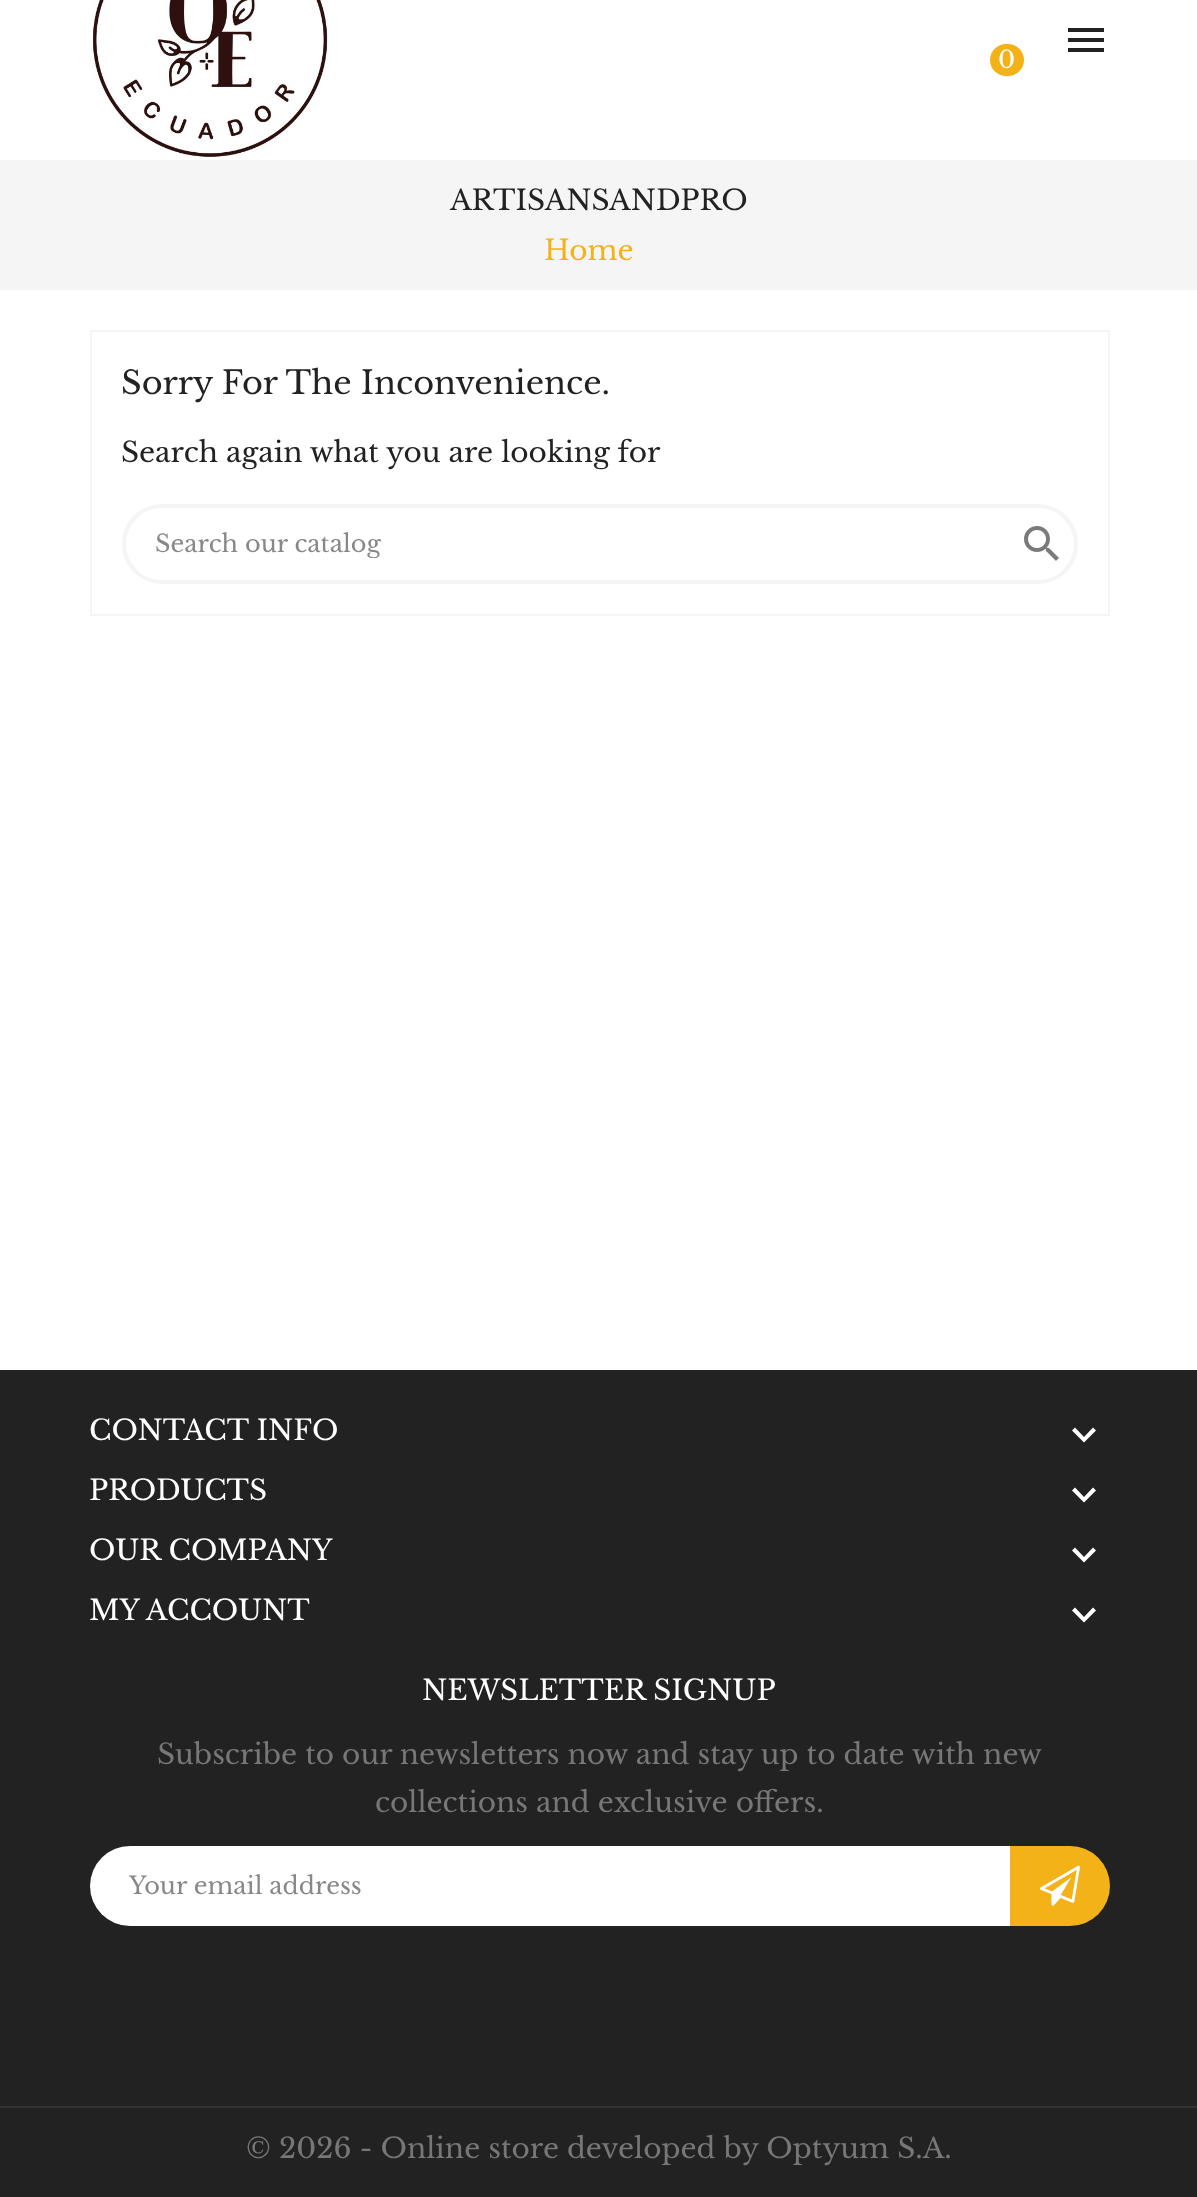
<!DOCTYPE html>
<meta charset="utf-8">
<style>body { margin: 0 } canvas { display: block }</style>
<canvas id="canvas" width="1197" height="2197"></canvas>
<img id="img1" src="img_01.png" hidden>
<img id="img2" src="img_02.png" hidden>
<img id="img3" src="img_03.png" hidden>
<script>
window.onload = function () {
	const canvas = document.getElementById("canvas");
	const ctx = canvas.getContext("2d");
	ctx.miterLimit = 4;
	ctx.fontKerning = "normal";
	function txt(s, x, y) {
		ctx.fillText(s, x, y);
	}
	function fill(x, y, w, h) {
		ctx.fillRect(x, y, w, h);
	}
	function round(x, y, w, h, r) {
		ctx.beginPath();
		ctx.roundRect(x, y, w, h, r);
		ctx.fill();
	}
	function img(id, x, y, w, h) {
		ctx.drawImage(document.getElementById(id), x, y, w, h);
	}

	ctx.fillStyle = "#FFFFFF";
	fill(0, 0, 1197, 2197);
	img("img1", 90, 0, 239, 157);
	ctx.fillStyle = "#222222";
	ctx.beginPath();
	ctx.moveTo(1068, 28);
	ctx.lineTo(1104, 28);
	ctx.lineTo(1104, 32);
	ctx.lineTo(1068, 32);
	ctx.closePath();
	ctx.moveTo(1068, 42);
	ctx.lineTo(1068, 38);
	ctx.lineTo(1104, 38);
	ctx.lineTo(1104, 42);
	ctx.closePath();
	ctx.moveTo(1068, 52);
	ctx.lineTo(1068, 48);
	ctx.lineTo(1104, 48);
	ctx.lineTo(1104, 52);
	ctx.closePath();
	ctx.fill();
	ctx.fillStyle = "#F2B218";
	round(990, 44, 34, 32, 16);
	ctx.fillStyle = "#F5F5F5";
	fill(0, 160, 1197, 130);
	ctx.strokeStyle = "#F5F5F5";
	ctx.lineWidth = 2;
	ctx.strokeRect(91, 331, 1018, 284);
	ctx.beginPath();
	ctx.roundRect(124, 506, 952, 76, 38);
	ctx.lineWidth = 4;
	ctx.stroke();
	img("img2", 1024, 526, 35, 35);
	ctx.fillStyle = "#222222";
	fill(0, 1370, 1197, 827);
	ctx.fillStyle = "#FFFFFF";
	ctx.beginPath();
	ctx.moveTo(1075, 1427.5);
	ctx.lineTo(1084, 1437);
	ctx.lineTo(1093, 1427.5);
	ctx.lineTo(1096, 1430.5);
	ctx.lineTo(1084, 1442.5);
	ctx.lineTo(1072, 1430.5);
	ctx.closePath();
	ctx.fill();
	ctx.beginPath();
	ctx.moveTo(1075, 1487.5);
	ctx.lineTo(1084, 1497);
	ctx.lineTo(1093, 1487.5);
	ctx.lineTo(1096, 1490.5);
	ctx.lineTo(1084, 1502.5);
	ctx.lineTo(1072, 1490.5);
	ctx.closePath();
	ctx.fill();
	ctx.beginPath();
	ctx.moveTo(1075, 1547.5);
	ctx.lineTo(1084, 1557);
	ctx.lineTo(1093, 1547.5);
	ctx.lineTo(1096, 1550.5);
	ctx.lineTo(1084, 1562.5);
	ctx.lineTo(1072, 1550.5);
	ctx.closePath();
	ctx.fill();
	ctx.beginPath();
	ctx.moveTo(1075, 1607.5);
	ctx.lineTo(1084, 1617);
	ctx.lineTo(1093, 1607.5);
	ctx.lineTo(1096, 1610.5);
	ctx.lineTo(1084, 1622.5);
	ctx.lineTo(1072, 1610.5);
	ctx.closePath();
	ctx.fill();
	ctx.beginPath();
	ctx.roundRect(90, 1846, 920, 80, [40, 0, 0, 40]);
	ctx.fill();
	ctx.fillStyle = "#F2B218";
	ctx.beginPath();
	ctx.roundRect(1010, 1846, 100, 80, [0, 40, 40, 0]);
	ctx.fill();
	img("img3", 1040, 1865, 40, 41);
	ctx.fillStyle = "#333333";
	fill(0, 2106, 1197, 2);
	ctx.font = "24px Libre Baskerville";
	ctx.fillStyle = "#FFFFFF";
	txt("0", 998, 68);
	ctx.font = "28px Libre Baskerville";
	ctx.fillStyle = "#222222";
	txt("ARTISANSANDPRO", 450, 210);
	ctx.fillStyle = "#F2B218";
	txt("Home", 544, 260);
	ctx.font = "32px Libre Baskerville";
	ctx.fillStyle = "#222222";
	txt("Sorry For The Inconvenience.", 121, 394);
	ctx.font = "28px Libre Baskerville";
	txt("Search again what you are looking for", 121, 462);
	ctx.save();
	ctx.beginPath();
	ctx.rect(156, 528, 888, 30);
	ctx.clip();
	ctx.font = "24px Libre Baskerville";
	ctx.fillStyle = "#888888";
	txt("Search our catalog", 155, 552);
	ctx.restore();
	ctx.fillStyle = "#FFFFFF";
	txt("CONTACT INFO", 89, 1440);
	txt("PRODUCTS", 89, 1500);
	txt("OUR COMPANY", 89, 1560);
	txt("MY ACCOUNT", 89, 1620);
	txt("NEWSLETTER SIGNUP", 422, 1700);
	ctx.fillStyle = "#777777";
	txt("Subscribe to our newsletters now and stay up to date with new", 157, 1764);
	txt("collections and exclusive offers.", 375, 1812);
	ctx.font = "24px Libre Baskerville";
	ctx.fillStyle = "#888888";
	txt("Your email address", 129, 1894);
	ctx.font = "28px Libre Baskerville";
	ctx.fillStyle = "#777777";
	txt("© 2026 - Online store developed by Optyum S.A.", 246, 2158);
};
</script>
